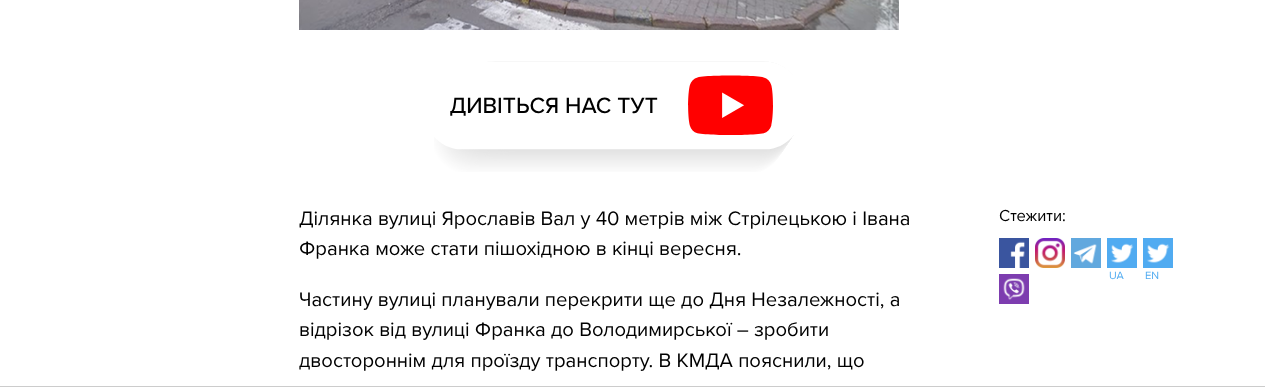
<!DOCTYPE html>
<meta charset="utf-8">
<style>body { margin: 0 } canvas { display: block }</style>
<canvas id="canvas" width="1265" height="387"></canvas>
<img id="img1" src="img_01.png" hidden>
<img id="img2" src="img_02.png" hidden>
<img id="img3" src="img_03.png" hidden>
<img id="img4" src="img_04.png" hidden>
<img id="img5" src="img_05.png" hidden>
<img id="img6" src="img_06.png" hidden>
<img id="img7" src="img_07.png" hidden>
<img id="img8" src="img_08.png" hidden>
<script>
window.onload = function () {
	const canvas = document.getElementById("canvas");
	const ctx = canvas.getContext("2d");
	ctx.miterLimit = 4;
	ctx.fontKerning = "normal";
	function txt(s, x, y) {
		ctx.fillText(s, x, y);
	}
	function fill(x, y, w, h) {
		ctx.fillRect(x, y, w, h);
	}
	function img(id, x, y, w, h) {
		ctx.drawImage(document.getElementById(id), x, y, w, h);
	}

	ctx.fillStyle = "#FFFFFF";
	fill(0, 0, 1265, 387);
	img("img1", 299, 0, 600, 30);
	img("img2", 434, 61, 360, 111);
	img("img3", 999, 238, 30, 30);
	img("img4", 1035, 238, 30, 30);
	img("img5", 1071, 238, 30, 30);
	img("img6", 999, 274, 30, 30);
	img("img7", 1107, 238, 30, 30);
	img("img8", 1143, 238, 30, 30);
	ctx.fillStyle = "#CCCCCC";
	fill(0, 386, 1265, 1);
	ctx.font = "20.3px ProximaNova";
	ctx.fillStyle = "#000000";
	txt("Ділянка вулиці Ярославів Вал у 40 метрів між Стрілецькою і Івана", 299, 225);
	txt("Франка може стати пішохідною в кінці вересня.", 299, 255);
	ctx.font = "16.5px ProximaNova";
	txt("Стежити:", 999, 221);
	ctx.font = "11px ProximaNova";
	ctx.fillStyle = "#50ABF1";
	txt("UA", 1109, 279);
	txt("EN", 1145, 279);
	ctx.font = "20.3px ProximaNova";
	ctx.fillStyle = "#000000";
	txt("Частину вулиці планували перекрити ще до Дня Незалежності, а", 299, 306);
	txt("відрізок від вулиці Франка до Володимирської – зробити", 299, 336);
	txt("двостороннім для проїзду транспорту. В КМДА пояснили, що", 299, 367);
};
</script>
